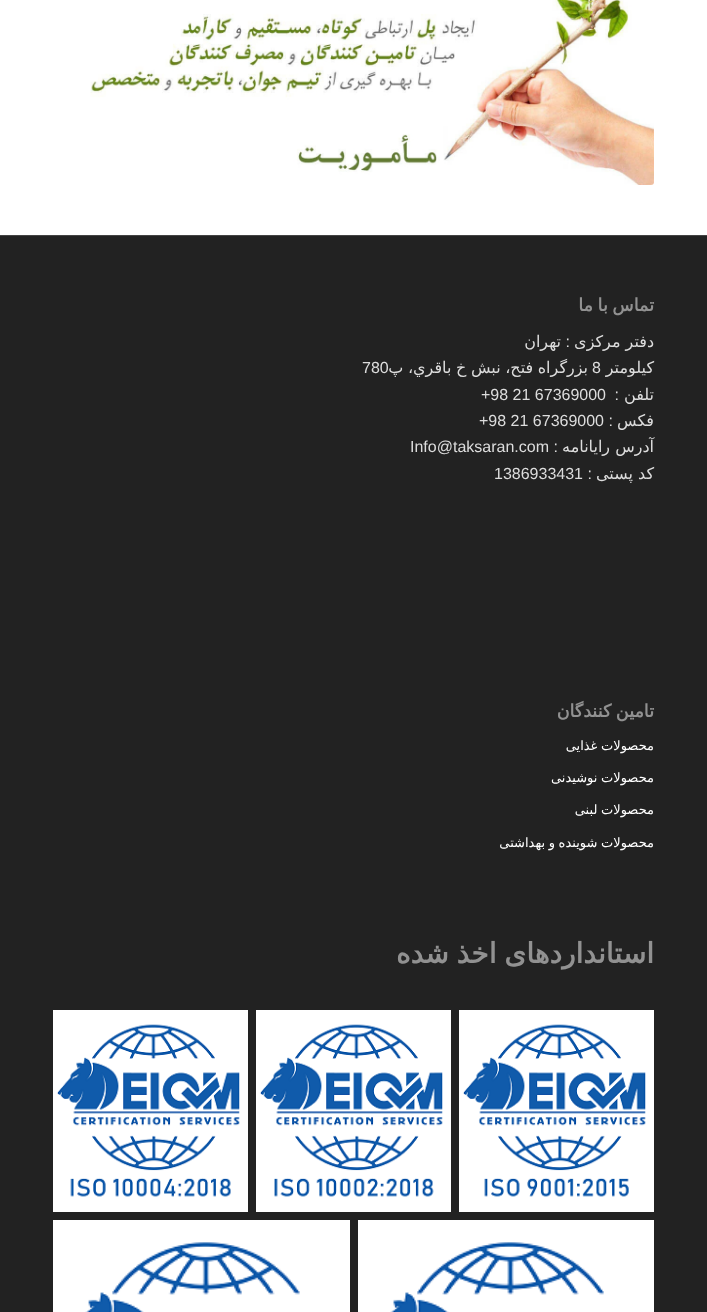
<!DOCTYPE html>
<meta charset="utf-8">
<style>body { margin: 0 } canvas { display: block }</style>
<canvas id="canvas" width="707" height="1312"></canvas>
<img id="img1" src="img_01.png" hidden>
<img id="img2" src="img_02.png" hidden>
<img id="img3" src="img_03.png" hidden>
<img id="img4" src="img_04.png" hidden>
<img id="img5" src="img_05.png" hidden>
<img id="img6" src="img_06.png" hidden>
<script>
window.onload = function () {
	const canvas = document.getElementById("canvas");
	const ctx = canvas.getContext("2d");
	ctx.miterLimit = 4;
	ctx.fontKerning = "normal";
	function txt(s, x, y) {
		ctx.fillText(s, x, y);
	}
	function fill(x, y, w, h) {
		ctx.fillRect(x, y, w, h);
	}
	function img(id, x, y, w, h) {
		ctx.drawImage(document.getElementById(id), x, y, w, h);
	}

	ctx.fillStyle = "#FFFFFF";
	fill(0, 0, 707, 1312);
	img("img1", 90, 0, 564, 185);
	ctx.fillStyle = "#222222";
	fill(0, 236, 707, 1076);
	ctx.fillStyle = "#444444";
	fill(0, 235, 707, 1);
	img("img2", 459, 1010, 195, 202);
	img("img3", 256, 1010, 195, 202);
	img("img4", 53, 1010, 195, 202);
	img("img5", 358, 1220, 296, 92);
	img("img6", 53, 1220, 297, 92);
	ctx.wordSpacing = "-1px";
	ctx.direction = "rtl";
	ctx.font = "bold 17.5px DejaVu Sans";
	ctx.fillStyle = "#919191";
	txt("تماس با ما", 654, 311);
	ctx.wordSpacing = "0px";
	ctx.font = "16px DejaVu Sans";
	ctx.fillStyle = "#DDDDDD";
	txt("دفتر مرکزی", 654, 347);
	ctx.font = "16px Liberation Sans";
	txt(":", 570, 347);
	ctx.font = "16px DejaVu Sans";
	txt("تهران", 561, 347);
	txt("کیلومتر", 654, 373);
	ctx.direction = "ltr";
	ctx.font = "16px Liberation Sans";
	txt("8", 592, 373);
	ctx.wordSpacing = "-0.5px";
	ctx.direction = "rtl";
	ctx.font = "16px DejaVu Sans";
	txt("بزرگراه فتح، نبش خ باقري، پ", 588, 373);
	ctx.wordSpacing = "0px";
	ctx.direction = "ltr";
	ctx.font = "16px Liberation Sans";
	txt("780", 362, 373);
	ctx.direction = "rtl";
	ctx.font = "16px DejaVu Sans";
	txt("تلفن", 654, 400);
	ctx.font = "16px Liberation Sans";
	txt(":", 619, 400);
	ctx.direction = "ltr";
	txt("+98 21 67369000", 481, 400);
	ctx.direction = "rtl";
	ctx.font = "16px DejaVu Sans";
	txt("فکس", 654, 426);
	ctx.font = "16px Liberation Sans";
	txt(":", 613, 426);
	ctx.direction = "ltr";
	txt("+98 21 67369000", 479, 426);
	ctx.direction = "rtl";
	ctx.font = "16px DejaVu Sans";
	txt("آدرس رایانامه", 654, 452);
	ctx.font = "16px Liberation Sans";
	txt(":", 558, 452);
	ctx.direction = "ltr";
	txt("Info@taksaran.com", 410, 452);
	ctx.direction = "rtl";
	ctx.font = "16px DejaVu Sans";
	txt("کد پستی", 654, 479);
	ctx.font = "16px Liberation Sans";
	txt(":", 592, 479);
	ctx.direction = "ltr";
	txt("1386933431", 494, 479);
	ctx.wordSpacing = "-1px";
	ctx.direction = "rtl";
	ctx.font = "bold 17.5px DejaVu Sans";
	ctx.fillStyle = "#919191";
	txt("تامین کنندگان", 654, 717);
	ctx.wordSpacing = "-0.5px";
	ctx.font = "13px DejaVu Sans";
	ctx.fillStyle = "#FFFFFF";
	txt("محصولات غذایی", 654, 750);
	txt("محصولات نوشیدنی", 654, 782);
	txt("محصولات لبنی", 654, 814);
	ctx.save();
	ctx.beginPath();
	ctx.rect(53, 687, 601, 172);
	ctx.clip();
	txt("محصولات شوینده و بهداشتی", 654, 847);
	ctx.restore();
	ctx.wordSpacing = "-1px";
	ctx.font = "bold 28px DejaVu Sans";
	ctx.fillStyle = "#919191";
	txt("استانداردهای اخذ شده", 654, 963);
};
</script>
